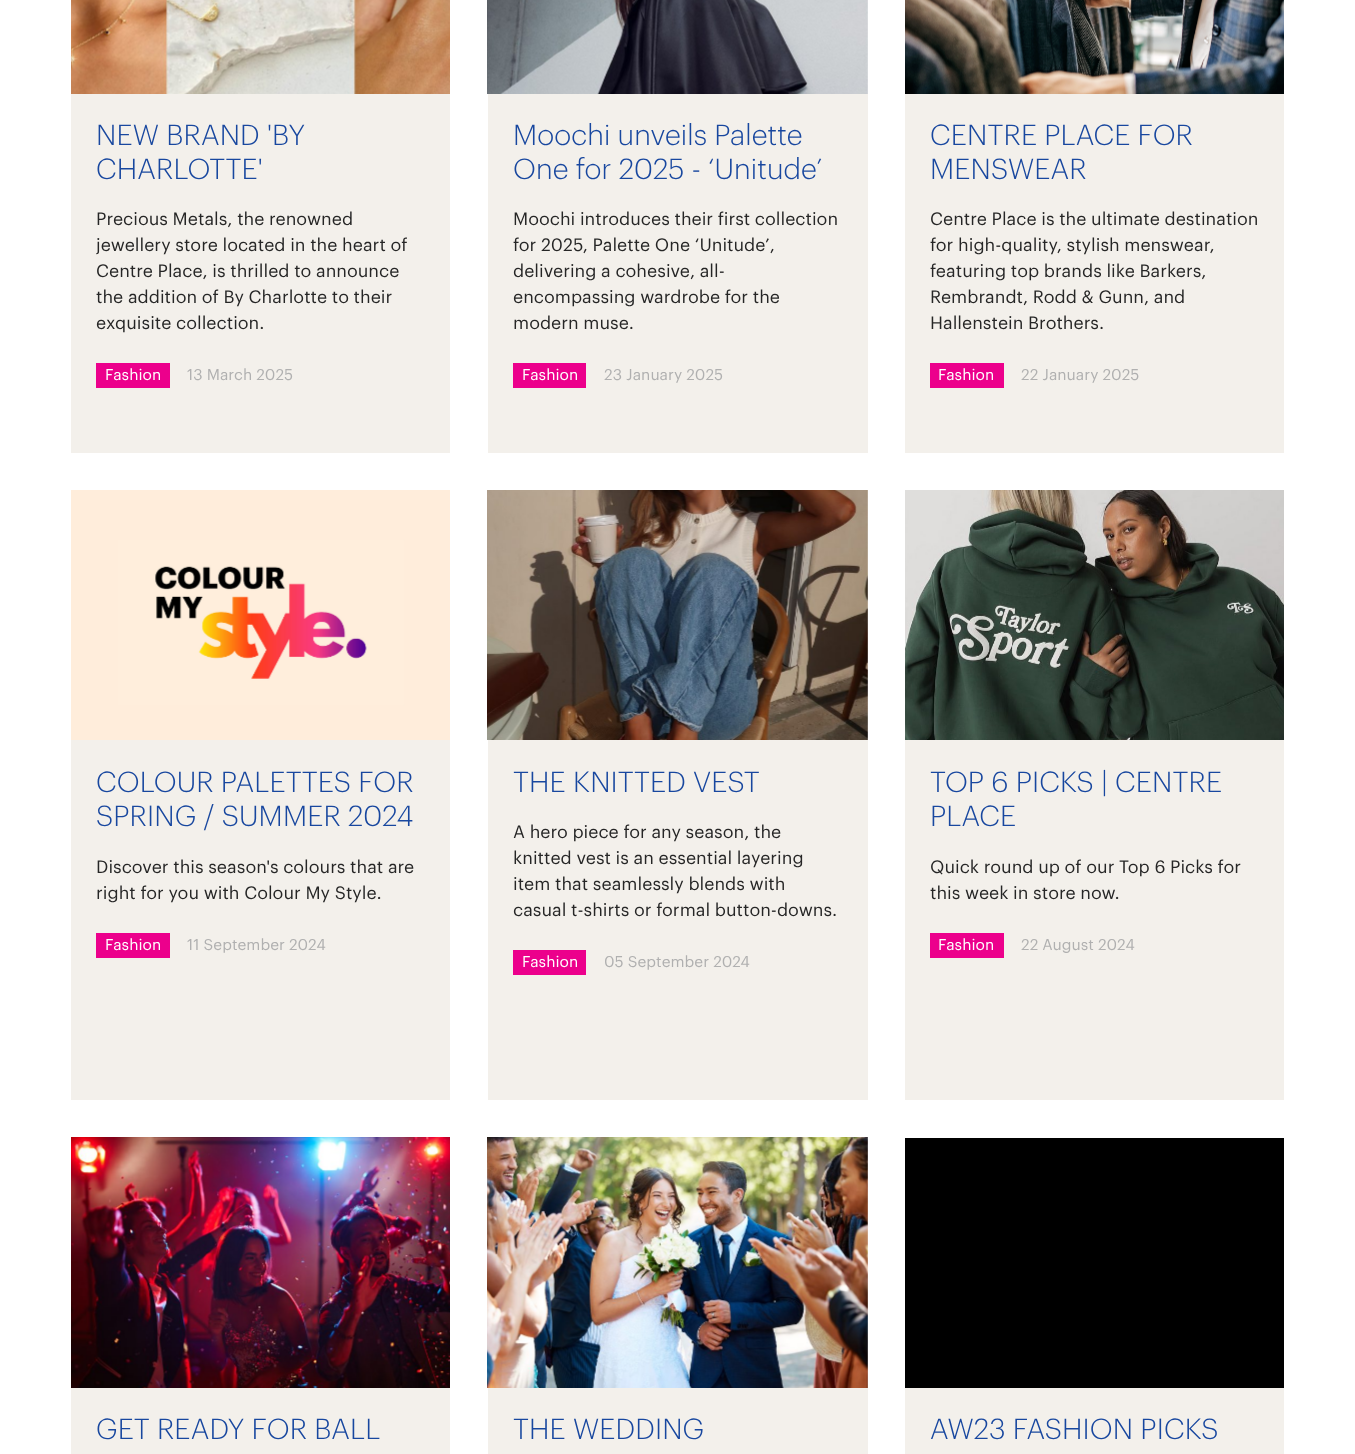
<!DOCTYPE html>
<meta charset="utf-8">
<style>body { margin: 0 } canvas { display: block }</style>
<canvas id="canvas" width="1355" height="1454"></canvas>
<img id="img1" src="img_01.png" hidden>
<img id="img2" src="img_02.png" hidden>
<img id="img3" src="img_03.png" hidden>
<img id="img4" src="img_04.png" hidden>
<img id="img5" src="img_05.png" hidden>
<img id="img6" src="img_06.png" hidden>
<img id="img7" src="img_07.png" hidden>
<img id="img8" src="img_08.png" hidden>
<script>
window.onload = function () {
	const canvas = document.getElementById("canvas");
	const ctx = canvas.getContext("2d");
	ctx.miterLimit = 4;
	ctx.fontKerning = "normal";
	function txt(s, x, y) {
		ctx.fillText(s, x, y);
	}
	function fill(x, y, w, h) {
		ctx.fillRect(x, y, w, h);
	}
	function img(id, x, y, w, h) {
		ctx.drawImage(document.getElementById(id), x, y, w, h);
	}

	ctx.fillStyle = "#FFFFFF";
	fill(0, 0, 1355, 1454);
	img("img1", 71, 0, 379, 94);
	ctx.fillStyle = "#F3F0EB";
	fill(71, 94, 379, 359);
	ctx.fillStyle = "#EC008C";
	fill(96, 363, 74, 25);
	img("img2", 487, 0, 381, 94);
	ctx.fillStyle = "#F3F0EB";
	fill(488, 94, 380, 359);
	ctx.fillStyle = "#EC008C";
	fill(513, 363, 73, 25);
	img("img3", 905, 0, 379, 94);
	ctx.fillStyle = "#F3F0EB";
	fill(905, 94, 379, 359);
	ctx.fillStyle = "#EC008C";
	fill(930, 363, 74, 25);
	img("img4", 71, 490, 379, 250);
	ctx.fillStyle = "#F3F0EB";
	fill(71, 740, 379, 360);
	ctx.fillStyle = "#EC008C";
	fill(96, 933, 74, 25);
	img("img5", 487, 490, 381, 250);
	ctx.fillStyle = "#F3F0EB";
	fill(488, 740, 380, 360);
	ctx.fillStyle = "#EC008C";
	fill(513, 950, 73, 25);
	img("img6", 905, 490, 379, 250);
	ctx.fillStyle = "#F3F0EB";
	fill(905, 740, 379, 360);
	ctx.fillStyle = "#EC008C";
	fill(930, 933, 74, 25);
	img("img7", 71, 1137, 379, 251);
	ctx.fillStyle = "#F3F0EB";
	fill(71, 1388, 379, 66);
	img("img8", 487, 1137, 381, 251);
	fill(488, 1388, 380, 66);
	ctx.fillStyle = "#000000";
	fill(905, 1138, 379, 250);
	ctx.fillStyle = "#F3F0EB";
	fill(905, 1388, 379, 66);
	ctx.font = "300 28.5px Graphik";
	ctx.fillStyle = "#18479F";
	txt("NEW BRAND 'BY", 96, 145);
	txt("CHARLOTTE'", 96, 179);
	ctx.font = "17.5px Graphik";
	ctx.fillStyle = "#262626";
	txt("Precious Metals, the renowned", 96, 225);
	txt("jewellery store located in the heart of", 96, 251);
	txt("Centre Place, is thrilled to announce", 96, 277);
	txt("the addition of By Charlotte to their", 96, 303);
	txt("exquisite collection.", 96, 329);
	ctx.font = "15.25px Graphik";
	ctx.fillStyle = "#FFFFFF";
	txt("Fashion", 105, 380);
	ctx.fillStyle = "#B0B0B0";
	txt("13 March 2025", 187, 380);
	ctx.font = "300 28.5px Graphik";
	ctx.fillStyle = "#18479F";
	txt("Moochi unveils Palette", 513, 145);
	txt("One for 2025 - ‘Unitude’", 513, 179);
	ctx.font = "17.5px Graphik";
	ctx.fillStyle = "#262626";
	txt("Moochi introduces their first collection", 513, 225);
	txt("for 2025, Palette One ‘Unitude’,", 513, 251);
	txt("delivering a cohesive, all-", 513, 277);
	txt("encompassing wardrobe for the", 513, 303);
	txt("modern muse.", 513, 329);
	ctx.font = "15.25px Graphik";
	ctx.fillStyle = "#FFFFFF";
	txt("Fashion", 522, 380);
	ctx.fillStyle = "#B0B0B0";
	txt("23 January 2025", 604, 380);
	ctx.font = "300 28.5px Graphik";
	ctx.fillStyle = "#18479F";
	txt("CENTRE PLACE FOR", 930, 145);
	txt("MENSWEAR", 930, 179);
	ctx.font = "17.5px Graphik";
	ctx.fillStyle = "#262626";
	txt("Centre Place is the ultimate destination", 930, 225);
	txt("for high-quality, stylish menswear,", 930, 251);
	txt("featuring top brands like Barkers,", 930, 277);
	txt("Rembrandt, Rodd & Gunn, and", 930, 303);
	txt("Hallenstein Brothers.", 930, 329);
	ctx.font = "15.25px Graphik";
	ctx.fillStyle = "#FFFFFF";
	txt("Fashion", 938, 380);
	ctx.fillStyle = "#B0B0B0";
	txt("22 January 2025", 1021, 380);
	ctx.font = "300 28.5px Graphik";
	ctx.fillStyle = "#18479F";
	txt("COLOUR PALETTES FOR", 96, 792);
	txt("SPRING / SUMMER 2024", 96, 826);
	ctx.font = "17.5px Graphik";
	ctx.fillStyle = "#262626";
	txt("Discover this season's colours that are", 96, 873);
	txt("right for you with Colour My Style.", 96, 899);
	ctx.font = "15.25px Graphik";
	ctx.fillStyle = "#FFFFFF";
	txt("Fashion", 105, 950);
	ctx.fillStyle = "#B0B0B0";
	txt("11 September 2024", 187, 950);
	ctx.font = "300 28.5px Graphik";
	ctx.fillStyle = "#18479F";
	txt("THE KNITTED VEST", 513, 792);
	ctx.font = "17.5px Graphik";
	ctx.fillStyle = "#262626";
	txt("A hero piece for any season, the", 513, 838);
	txt("knitted vest is an essential layering", 513, 864);
	txt("item that seamlessly blends with", 513, 890);
	txt("casual t-shirts or formal button-downs.", 513, 916);
	ctx.font = "15.25px Graphik";
	ctx.fillStyle = "#FFFFFF";
	txt("Fashion", 522, 967);
	ctx.fillStyle = "#B0B0B0";
	txt("05 September 2024", 604, 967);
	ctx.font = "300 28.5px Graphik";
	ctx.fillStyle = "#18479F";
	txt("TOP 6 PICKS | CENTRE", 930, 792);
	txt("PLACE", 930, 826);
	ctx.font = "17.5px Graphik";
	ctx.fillStyle = "#262626";
	txt("Quick round up of our Top 6 Picks for", 930, 873);
	txt("this week in store now.", 930, 899);
	ctx.font = "15.25px Graphik";
	ctx.fillStyle = "#FFFFFF";
	txt("Fashion", 938, 950);
	ctx.fillStyle = "#B0B0B0";
	txt("22 August 2024", 1021, 950);
	ctx.font = "300 28.5px Graphik";
	ctx.fillStyle = "#18479F";
	txt("GET READY FOR BALL", 96, 1439);
	txt("THE WEDDING", 513, 1439);
	txt("AW23 FASHION PICKS", 930, 1439);
};
</script>
